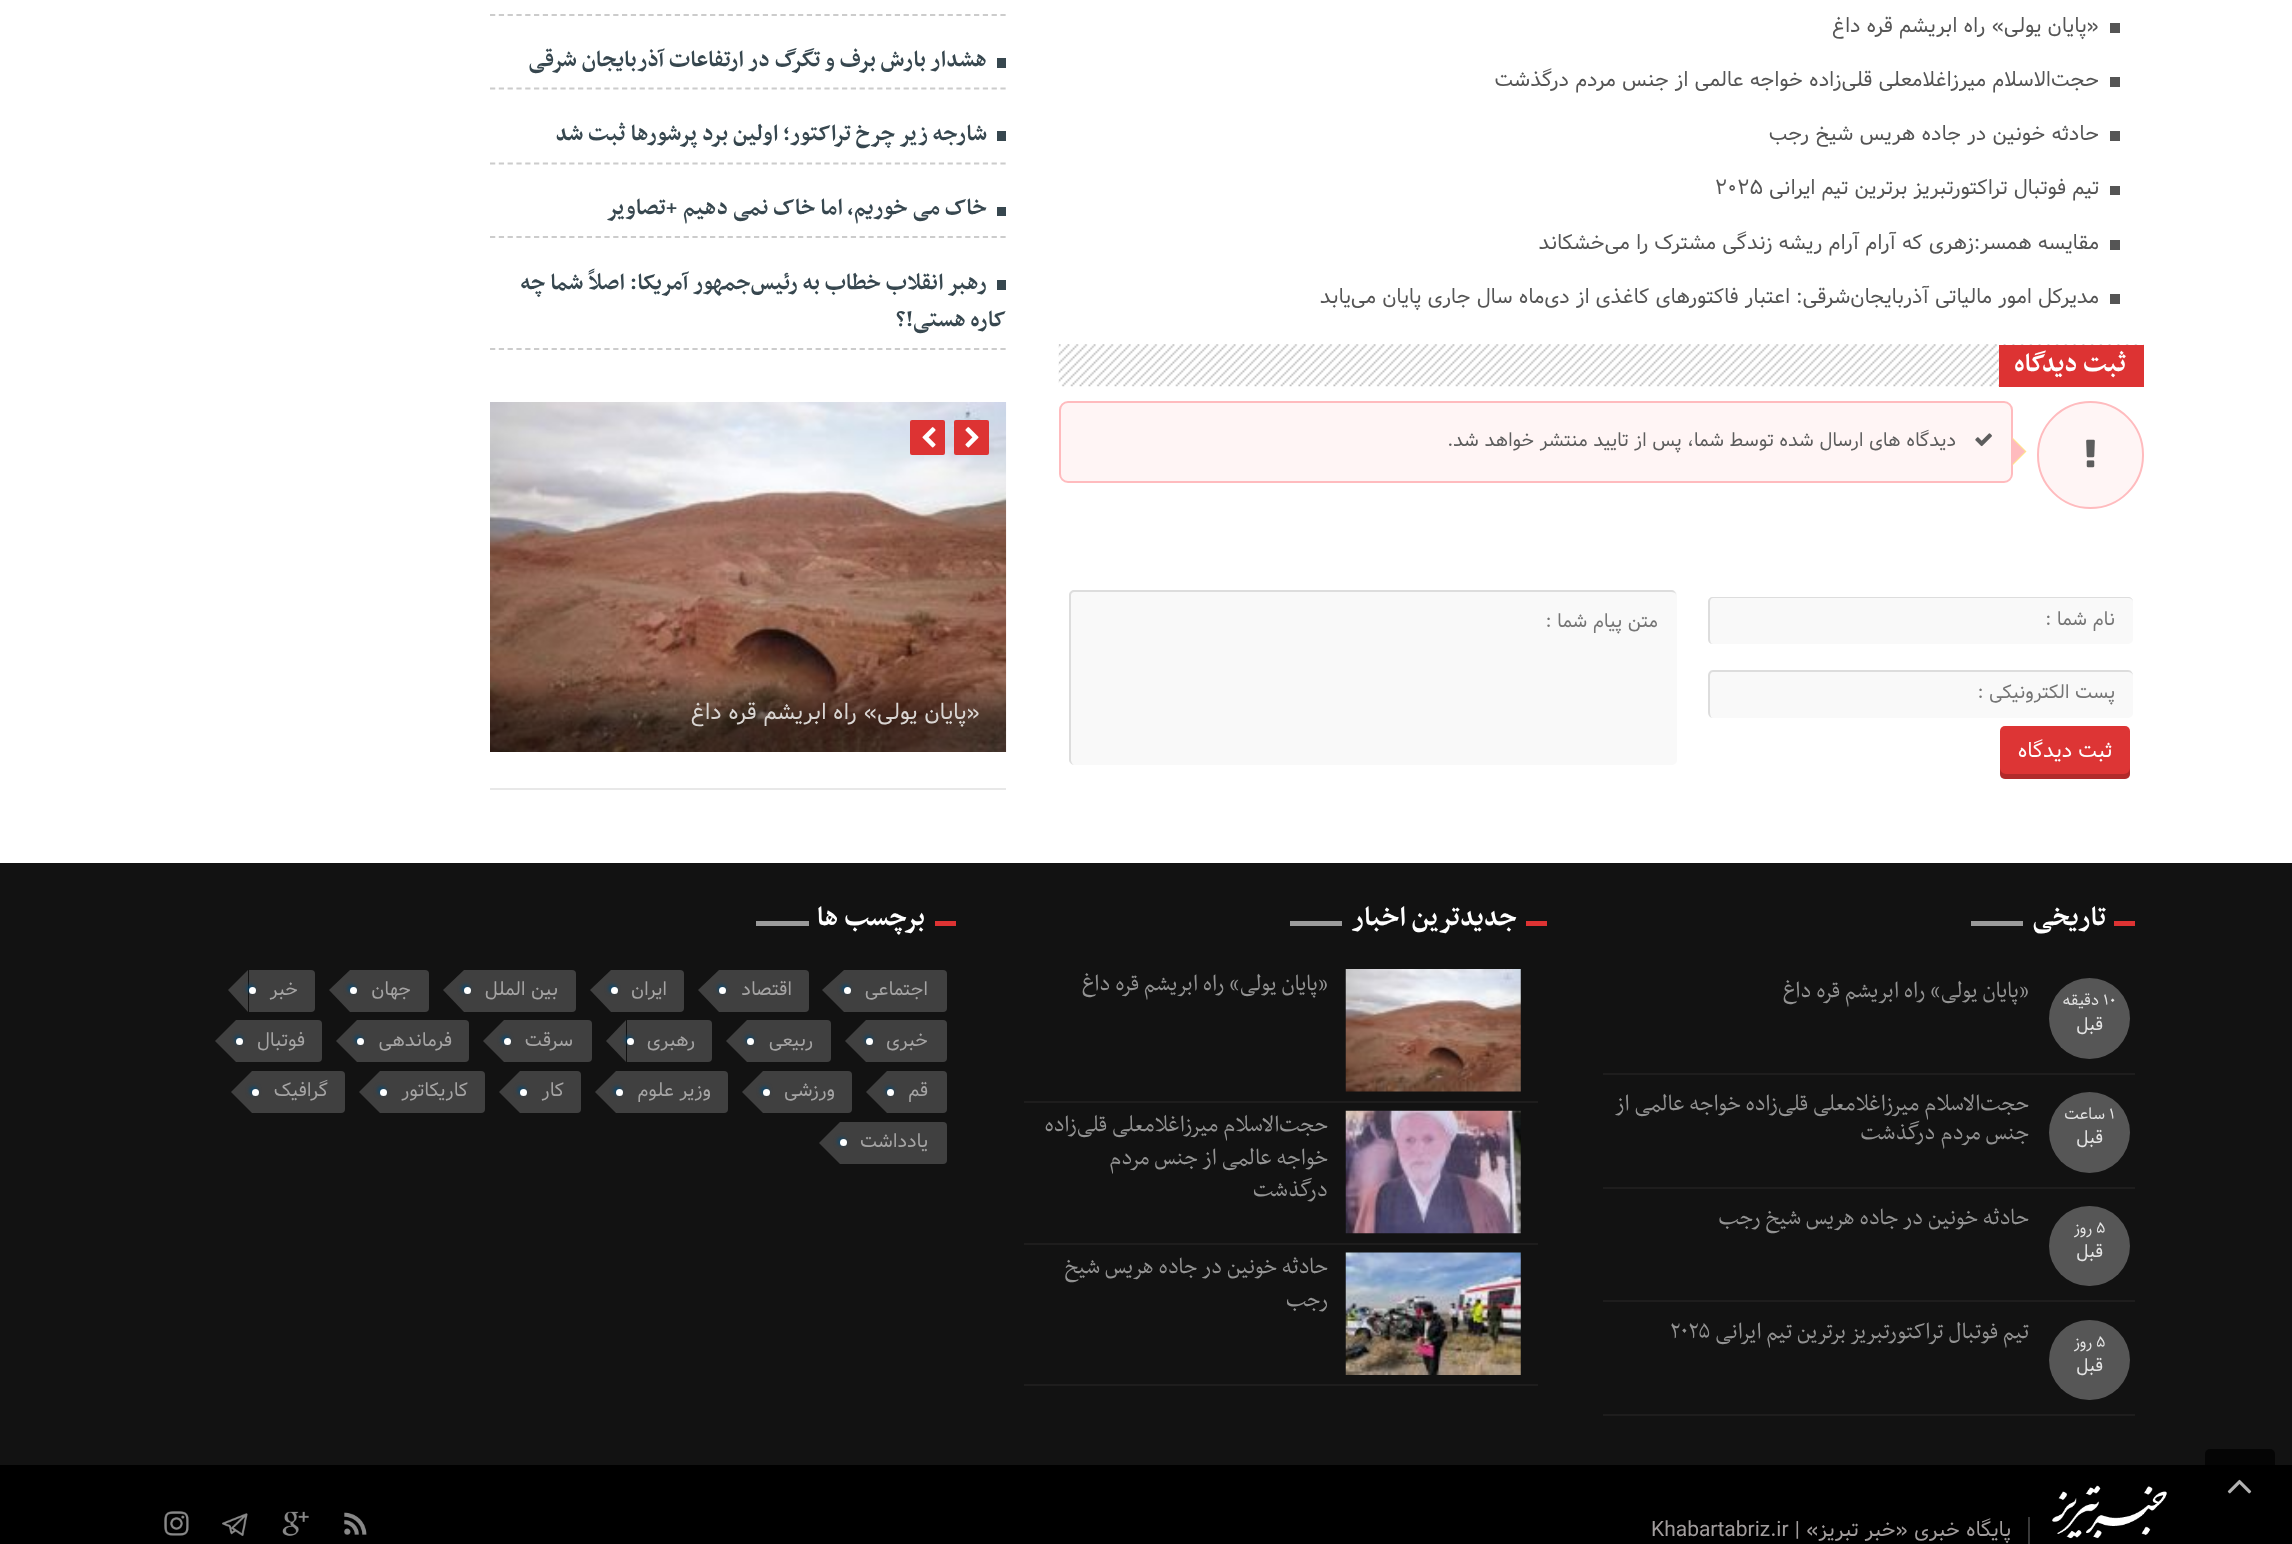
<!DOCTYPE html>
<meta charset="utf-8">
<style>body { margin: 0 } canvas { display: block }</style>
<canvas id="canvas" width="2292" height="1544"></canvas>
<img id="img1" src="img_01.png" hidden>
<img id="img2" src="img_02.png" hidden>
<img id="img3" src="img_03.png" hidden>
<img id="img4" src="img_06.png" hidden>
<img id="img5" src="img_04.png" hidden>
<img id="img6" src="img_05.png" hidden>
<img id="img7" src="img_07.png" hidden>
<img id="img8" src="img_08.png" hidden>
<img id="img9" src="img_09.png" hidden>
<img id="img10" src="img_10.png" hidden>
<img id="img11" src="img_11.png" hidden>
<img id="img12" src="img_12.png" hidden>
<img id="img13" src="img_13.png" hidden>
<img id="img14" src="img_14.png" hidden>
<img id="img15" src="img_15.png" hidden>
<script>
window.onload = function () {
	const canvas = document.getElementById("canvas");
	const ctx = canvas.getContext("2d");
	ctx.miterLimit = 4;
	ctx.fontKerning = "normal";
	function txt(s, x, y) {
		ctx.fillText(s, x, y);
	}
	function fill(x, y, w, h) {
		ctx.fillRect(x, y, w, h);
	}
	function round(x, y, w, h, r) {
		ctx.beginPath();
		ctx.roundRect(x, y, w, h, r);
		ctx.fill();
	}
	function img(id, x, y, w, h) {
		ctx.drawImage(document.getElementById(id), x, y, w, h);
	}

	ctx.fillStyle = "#FFFFFF";
	fill(0, 0, 2292, 1544);
	ctx.fillStyle = "#555555";
	fill(2110, 23, 10, 10);
	fill(2110, 77, 10, 10);
	fill(2110, 131, 10, 10);
	fill(2110, 186, 10, 9);
	fill(2110, 240, 10, 10);
	fill(2110, 294, 10, 10);
	img("img1", 1058, 344, 1086, 43);
	ctx.fillStyle = "#DD3333";
	fill(1999, 345, 145, 42);
	ctx.fillStyle = "#FFF5F5";
	ctx.beginPath();
	ctx.roundRect(2038, 402, 105, 106, 52.5);
	ctx.fill();
	ctx.strokeStyle = "#FFBBBE";
	ctx.lineWidth = 2;
	ctx.stroke();
	img("img2", 2086, 439, 9, 29);
	ctx.beginPath();
	ctx.roundRect(1060, 402, 952, 80, 8);
	ctx.fill();
	ctx.stroke();
	ctx.fillStyle = "#FFE38E";
	ctx.beginPath();
	ctx.moveTo(2012.5, 465.5);
	ctx.lineTo(2012.5, 437.5);
	ctx.lineTo(2026.5, 451.5);
	ctx.closePath();
	ctx.fill();
	ctx.fillStyle = "#FFBBBE";
	ctx.beginPath();
	ctx.moveTo(2011, 465.5);
	ctx.lineTo(2011, 437.5);
	ctx.lineTo(2025, 451.5);
	ctx.closePath();
	ctx.fill();
	img("img3", 1975, 433, 17, 14);
	ctx.fillStyle = "#F9F9F9";
	round(1708, 597, 425, 47, 5);
	ctx.fillStyle = "#DDDDDD";
	ctx.beginPath();
	ctx.moveTo(1713, 597);
	ctx.lineTo(2128, 597);
	ctx.bezierCurveTo(2131, 597, 2133, 599, 2133, 602);
	ctx.lineTo(2133, 639);
	ctx.bezierCurveTo(2133, 642, 2131, 644, 2128, 644);
	ctx.lineTo(1713, 644);
	ctx.bezierCurveTo(1710, 644, 1708, 642, 1708, 639);
	ctx.lineTo(1708, 602);
	ctx.bezierCurveTo(1708, 599, 1710, 597, 1713, 597);
	ctx.closePath();
	ctx.moveTo(1713, 598);
	ctx.lineTo(2128, 598);
	ctx.bezierCurveTo(2131, 598, 2133, 600, 2133, 602);
	ctx.lineTo(2133, 639);
	ctx.bezierCurveTo(2133, 642, 2131, 644, 2128, 644);
	ctx.lineTo(1713, 644);
	ctx.bezierCurveTo(1711, 644, 1710, 642, 1710, 639);
	ctx.lineTo(1710, 602);
	ctx.bezierCurveTo(1710, 600, 1711, 598, 1713, 598);
	ctx.closePath();
	ctx.fill("evenodd");
	ctx.fillStyle = "#F9F9F9";
	round(1069, 590, 608, 175, 5);
	ctx.fillStyle = "#DDDDDD";
	ctx.beginPath();
	ctx.moveTo(1074, 590);
	ctx.lineTo(1671, 590);
	ctx.bezierCurveTo(1674, 590, 1676, 592, 1676, 595);
	ctx.lineTo(1676, 760);
	ctx.bezierCurveTo(1676, 762, 1674, 765, 1671, 765);
	ctx.lineTo(1074, 765);
	ctx.bezierCurveTo(1072, 765, 1069, 762, 1069, 760);
	ctx.lineTo(1069, 595);
	ctx.bezierCurveTo(1069, 592, 1072, 590, 1074, 590);
	ctx.closePath();
	ctx.moveTo(1074, 592);
	ctx.lineTo(1671, 592);
	ctx.bezierCurveTo(1674, 592, 1676, 593, 1676, 595);
	ctx.lineTo(1676, 760);
	ctx.bezierCurveTo(1676, 762, 1674, 765, 1671, 765);
	ctx.lineTo(1074, 765);
	ctx.bezierCurveTo(1073, 765, 1071, 762, 1071, 760);
	ctx.lineTo(1071, 595);
	ctx.bezierCurveTo(1071, 593, 1073, 592, 1074, 592);
	ctx.closePath();
	ctx.fill("evenodd");
	ctx.fillStyle = "#F9F9F9";
	round(1708, 670, 425, 48, 5);
	ctx.fillStyle = "#DDDDDD";
	ctx.beginPath();
	ctx.moveTo(1713, 670);
	ctx.lineTo(2128, 670);
	ctx.bezierCurveTo(2131, 670, 2133, 673, 2133, 676);
	ctx.lineTo(2133, 712);
	ctx.bezierCurveTo(2133, 715, 2131, 718, 2128, 718);
	ctx.lineTo(1713, 718);
	ctx.bezierCurveTo(1710, 718, 1708, 715, 1708, 712);
	ctx.lineTo(1708, 676);
	ctx.bezierCurveTo(1708, 673, 1710, 670, 1713, 670);
	ctx.closePath();
	ctx.moveTo(1713, 672);
	ctx.lineTo(2128, 672);
	ctx.bezierCurveTo(2131, 672, 2133, 674, 2133, 676);
	ctx.lineTo(2133, 712);
	ctx.bezierCurveTo(2133, 715, 2131, 718, 2128, 718);
	ctx.lineTo(1713, 718);
	ctx.bezierCurveTo(1711, 718, 1710, 715, 1710, 712);
	ctx.lineTo(1710, 676);
	ctx.bezierCurveTo(1710, 674, 1711, 672, 1713, 672);
	ctx.closePath();
	ctx.fill("evenodd");
	ctx.fillStyle = "#DD3535";
	round(2000, 726, 130, 53, 5);
	ctx.fillStyle = "rgba(3, 3, 3, 0.2)";
	ctx.beginPath();
	ctx.moveTo(2000, 768);
	ctx.lineTo(2000, 774);
	ctx.bezierCurveTo(2000, 777, 2002, 779, 2005, 779);
	ctx.lineTo(2125, 779);
	ctx.bezierCurveTo(2128, 779, 2130, 777, 2130, 774);
	ctx.lineTo(2130, 768);
	ctx.bezierCurveTo(2130, 771, 2127, 774, 2124, 774);
	ctx.lineTo(2006, 774);
	ctx.bezierCurveTo(2003, 774, 2000, 771, 2000, 768);
	ctx.closePath();
	ctx.fill();
	ctx.beginPath();
	ctx.moveTo(490, 15);
	ctx.lineTo(1006, 15);
	ctx.strokeStyle = "#CCCCCC";
	ctx.lineWidth = 1.8;
	ctx.setLineDash([5.25, 3.55]);
	ctx.stroke();
	ctx.beginPath();
	ctx.moveTo(490, 88.5);
	ctx.lineTo(1006, 88.5);
	ctx.stroke();
	ctx.fillStyle = "#37474F";
	fill(997, 58, 9, 10);
	ctx.beginPath();
	ctx.moveTo(490, 163.5);
	ctx.lineTo(1006, 163.5);
	ctx.stroke();
	fill(997, 131, 9, 10);
	ctx.beginPath();
	ctx.moveTo(490, 237);
	ctx.lineTo(1006, 237);
	ctx.stroke();
	fill(997, 207, 9, 9);
	ctx.beginPath();
	ctx.moveTo(490, 349);
	ctx.lineTo(1006, 349);
	ctx.stroke();
	fill(997, 280, 9, 10);
	img("img4", 490, 402, 517, 350);
	ctx.fillStyle = "#DD3333";
	round(954, 420, 35, 35, 2);
	img("img5", 965, 427, 14, 21);
	round(910, 420, 35, 35, 2);
	img("img6", 922, 427, 14, 21);
	ctx.fillStyle = "#E8E8E8";
	fill(490, 788, 516, 2);
	ctx.fillStyle = "#121212";
	fill(0, 863, 2292, 602);
	ctx.fillStyle = "#DD3333";
	fill(2114, 921, 21, 5);
	ctx.fillStyle = "#9A9A9A";
	fill(1971, 921, 52, 5);
	ctx.fillStyle = "#1E1D1D";
	fill(1603, 1073, 532, 2);
	ctx.fillStyle = "#565656";
	ctx.beginPath();
	ctx.arc(2089.5, 1018.5, 40.5, 0, Math.PI * 2);
	ctx.fill();
	ctx.fillStyle = "#1E1D1D";
	fill(1603, 1187, 532, 2);
	ctx.fillStyle = "#565656";
	ctx.beginPath();
	ctx.arc(2089.5, 1132.5, 40.5, 0, Math.PI * 2);
	ctx.fill();
	ctx.fillStyle = "#1E1D1D";
	fill(1603, 1300, 532, 2);
	ctx.fillStyle = "#565656";
	round(2049, 1206, 81, 80, 40);
	ctx.fillStyle = "#1E1D1D";
	fill(1603, 1414, 532, 2);
	ctx.fillStyle = "#565656";
	round(2049, 1320, 81, 80, 40);
	ctx.fillStyle = "#DD3333";
	fill(1526, 921, 21, 5);
	ctx.fillStyle = "#9A9A9A";
	fill(1290, 921, 52, 5);
	ctx.fillStyle = "#1E1D1D";
	fill(1024, 1101, 514, 2);
	img("img7", 1345, 969, 176, 123);
	fill(1024, 1243, 514, 2);
	img("img8", 1345, 1110, 176, 124);
	fill(1024, 1384, 514, 2);
	img("img9", 1345, 1252, 176, 123);
	ctx.fillStyle = "#DD3333";
	fill(935, 921, 21, 5);
	ctx.fillStyle = "#9A9A9A";
	fill(756, 921, 53, 5);
	ctx.fillStyle = "#404040";
	ctx.beginPath();
	ctx.roundRect(844, 970, 103, 42, [0, 4, 4, 0]);
	ctx.fill();
	ctx.beginPath();
	ctx.moveTo(844, 970);
	ctx.lineTo(844, 1012);
	ctx.lineTo(822, 990);
	ctx.closePath();
	ctx.fill();
	ctx.fillStyle = "#004977";
	ctx.filter = "blur(2px)";
	ctx.beginPath();
	ctx.roundRect(842, 985, 7, 7, 3.5);
	ctx.fill();
	ctx.filter = "none";
	ctx.fillStyle = "#FFFFFF";
	ctx.beginPath();
	ctx.arc(847.5, 990.5, 3.5, 0, Math.PI * 2);
	ctx.fill();
	ctx.fillStyle = "#404040";
	ctx.beginPath();
	ctx.roundRect(719, 970, 90, 42, [0, 4, 4, 0]);
	ctx.fill();
	ctx.beginPath();
	ctx.moveTo(719, 970);
	ctx.lineTo(719, 1012);
	ctx.lineTo(698, 990);
	ctx.closePath();
	ctx.fill();
	ctx.fillStyle = "#004977";
	ctx.filter = "blur(2px)";
	ctx.beginPath();
	ctx.roundRect(718, 985, 7, 7, 3.5);
	ctx.fill();
	ctx.filter = "none";
	ctx.fillStyle = "#FFFFFF";
	ctx.beginPath();
	ctx.arc(722.5, 990.5, 3.5, 0, Math.PI * 2);
	ctx.fill();
	ctx.fillStyle = "#404040";
	ctx.beginPath();
	ctx.roundRect(611, 970, 73, 42, [0, 4, 4, 0]);
	ctx.fill();
	ctx.beginPath();
	ctx.moveTo(611, 970);
	ctx.lineTo(611, 1012);
	ctx.lineTo(590, 990);
	ctx.closePath();
	ctx.fill();
	ctx.fillStyle = "#004977";
	ctx.filter = "blur(2px)";
	ctx.beginPath();
	ctx.roundRect(609, 985, 7, 7, 3.5);
	ctx.fill();
	ctx.filter = "none";
	ctx.fillStyle = "#FFFFFF";
	ctx.beginPath();
	ctx.arc(614.5, 990.5, 3.5, 0, Math.PI * 2);
	ctx.fill();
	ctx.fillStyle = "#404040";
	ctx.beginPath();
	ctx.roundRect(464, 970, 112, 42, [0, 4, 4, 0]);
	ctx.fill();
	ctx.beginPath();
	ctx.moveTo(464, 970);
	ctx.lineTo(464, 1012);
	ctx.lineTo(443, 990);
	ctx.closePath();
	ctx.fill();
	ctx.fillStyle = "#004977";
	ctx.filter = "blur(2px)";
	ctx.beginPath();
	ctx.roundRect(462, 985, 7, 7, 3.5);
	ctx.fill();
	ctx.filter = "none";
	ctx.fillStyle = "#FFFFFF";
	ctx.beginPath();
	ctx.arc(467.5, 990.5, 3.5, 0, Math.PI * 2);
	ctx.fill();
	ctx.fillStyle = "#404040";
	ctx.beginPath();
	ctx.roundRect(350, 970, 79, 42, [0, 4, 4, 0]);
	ctx.fill();
	ctx.beginPath();
	ctx.moveTo(350, 970);
	ctx.lineTo(350, 1012);
	ctx.lineTo(329, 990);
	ctx.closePath();
	ctx.fill();
	ctx.fillStyle = "#004977";
	ctx.filter = "blur(2px)";
	ctx.beginPath();
	ctx.roundRect(348, 985, 7, 7, 3.5);
	ctx.fill();
	ctx.filter = "none";
	ctx.fillStyle = "#FFFFFF";
	ctx.beginPath();
	ctx.arc(353.5, 990.5, 3.5, 0, Math.PI * 2);
	ctx.fill();
	ctx.fillStyle = "#404040";
	ctx.beginPath();
	ctx.roundRect(249, 970, 66, 42, [0, 4, 4, 0]);
	ctx.fill();
	ctx.beginPath();
	ctx.moveTo(248, 970);
	ctx.lineTo(248, 1012);
	ctx.lineTo(228, 990);
	ctx.closePath();
	ctx.fill();
	ctx.fillStyle = "#004977";
	ctx.filter = "blur(2px)";
	ctx.beginPath();
	ctx.roundRect(247, 985, 7, 7, 3.5);
	ctx.fill();
	ctx.filter = "none";
	ctx.fillStyle = "#FFFFFF";
	ctx.beginPath();
	ctx.arc(252.5, 990.5, 3.5, 0, Math.PI * 2);
	ctx.fill();
	ctx.fillStyle = "#404040";
	ctx.beginPath();
	ctx.roundRect(866, 1020, 81, 42, [0, 4, 4, 0]);
	ctx.fill();
	ctx.beginPath();
	ctx.moveTo(866, 1020);
	ctx.lineTo(866, 1062);
	ctx.lineTo(845, 1041);
	ctx.closePath();
	ctx.fill();
	ctx.fillStyle = "#004977";
	ctx.filter = "blur(2px)";
	ctx.beginPath();
	ctx.roundRect(865, 1036, 7, 7, 3.5);
	ctx.fill();
	ctx.filter = "none";
	ctx.fillStyle = "#FFFFFF";
	ctx.beginPath();
	ctx.arc(869.5, 1041.5, 3.5, 0, Math.PI * 2);
	ctx.fill();
	ctx.fillStyle = "#404040";
	ctx.beginPath();
	ctx.roundRect(747, 1020, 84, 42, [0, 4, 4, 0]);
	ctx.fill();
	ctx.beginPath();
	ctx.moveTo(747, 1020);
	ctx.lineTo(747, 1062);
	ctx.lineTo(726, 1041);
	ctx.closePath();
	ctx.fill();
	ctx.fillStyle = "#004977";
	ctx.filter = "blur(2px)";
	ctx.beginPath();
	ctx.roundRect(746, 1036, 7, 7, 3.5);
	ctx.fill();
	ctx.filter = "none";
	ctx.fillStyle = "#FFFFFF";
	ctx.beginPath();
	ctx.arc(750.5, 1041.5, 3.5, 0, Math.PI * 2);
	ctx.fill();
	ctx.fillStyle = "#404040";
	ctx.beginPath();
	ctx.roundRect(627, 1020, 85, 42, [0, 4, 4, 0]);
	ctx.fill();
	ctx.beginPath();
	ctx.moveTo(626, 1020);
	ctx.lineTo(626, 1062);
	ctx.lineTo(606, 1041);
	ctx.closePath();
	ctx.fill();
	ctx.fillStyle = "#004977";
	ctx.filter = "blur(2px)";
	ctx.beginPath();
	ctx.roundRect(625, 1036, 7, 7, 3.5);
	ctx.fill();
	ctx.filter = "none";
	ctx.fillStyle = "#FFFFFF";
	ctx.beginPath();
	ctx.arc(630.5, 1041.5, 3.5, 0, Math.PI * 2);
	ctx.fill();
	ctx.fillStyle = "#404040";
	ctx.beginPath();
	ctx.roundRect(504, 1020, 88, 42, [0, 4, 4, 0]);
	ctx.fill();
	ctx.beginPath();
	ctx.moveTo(504, 1020);
	ctx.lineTo(504, 1062);
	ctx.lineTo(483, 1041);
	ctx.closePath();
	ctx.fill();
	ctx.fillStyle = "#004977";
	ctx.filter = "blur(2px)";
	ctx.beginPath();
	ctx.roundRect(502, 1036, 7, 7, 3.5);
	ctx.fill();
	ctx.filter = "none";
	ctx.fillStyle = "#FFFFFF";
	ctx.beginPath();
	ctx.arc(507.5, 1041.5, 3.5, 0, Math.PI * 2);
	ctx.fill();
	ctx.fillStyle = "#404040";
	ctx.beginPath();
	ctx.roundRect(357, 1020, 112, 42, [0, 4, 4, 0]);
	ctx.fill();
	ctx.beginPath();
	ctx.moveTo(357, 1020);
	ctx.lineTo(357, 1062);
	ctx.lineTo(336, 1041);
	ctx.closePath();
	ctx.fill();
	ctx.fillStyle = "#004977";
	ctx.filter = "blur(2px)";
	ctx.beginPath();
	ctx.roundRect(355, 1036, 7, 7, 3.5);
	ctx.fill();
	ctx.filter = "none";
	ctx.fillStyle = "#FFFFFF";
	ctx.beginPath();
	ctx.arc(360.5, 1041.5, 3.5, 0, Math.PI * 2);
	ctx.fill();
	ctx.fillStyle = "#404040";
	ctx.beginPath();
	ctx.roundRect(236, 1020, 86, 42, [0, 4, 4, 0]);
	ctx.fill();
	ctx.beginPath();
	ctx.moveTo(236, 1020);
	ctx.lineTo(236, 1062);
	ctx.lineTo(215, 1041);
	ctx.closePath();
	ctx.fill();
	ctx.fillStyle = "#004977";
	ctx.filter = "blur(2px)";
	ctx.beginPath();
	ctx.roundRect(235, 1036, 7, 7, 3.5);
	ctx.fill();
	ctx.filter = "none";
	ctx.fillStyle = "#FFFFFF";
	ctx.beginPath();
	ctx.arc(239.5, 1041.5, 3.5, 0, Math.PI * 2);
	ctx.fill();
	ctx.fillStyle = "#404040";
	ctx.beginPath();
	ctx.roundRect(887, 1071, 60, 42, [0, 4, 4, 0]);
	ctx.fill();
	ctx.beginPath();
	ctx.moveTo(887, 1071);
	ctx.lineTo(887, 1113);
	ctx.lineTo(866, 1092);
	ctx.closePath();
	ctx.fill();
	ctx.fillStyle = "#004977";
	ctx.filter = "blur(2px)";
	ctx.beginPath();
	ctx.roundRect(886, 1087, 7, 7, 3.5);
	ctx.fill();
	ctx.filter = "none";
	ctx.fillStyle = "#FFFFFF";
	ctx.beginPath();
	ctx.arc(890.5, 1092.5, 3.5, 0, Math.PI * 2);
	ctx.fill();
	ctx.fillStyle = "#404040";
	ctx.beginPath();
	ctx.roundRect(763, 1071, 89, 42, [0, 4, 4, 0]);
	ctx.fill();
	ctx.beginPath();
	ctx.moveTo(763, 1071);
	ctx.lineTo(763, 1113);
	ctx.lineTo(742, 1092);
	ctx.closePath();
	ctx.fill();
	ctx.fillStyle = "#004977";
	ctx.filter = "blur(2px)";
	ctx.beginPath();
	ctx.roundRect(761, 1087, 7, 7, 3.5);
	ctx.fill();
	ctx.filter = "none";
	ctx.fillStyle = "#FFFFFF";
	ctx.beginPath();
	ctx.arc(766.5, 1092.5, 3.5, 0, Math.PI * 2);
	ctx.fill();
	ctx.fillStyle = "#404040";
	ctx.beginPath();
	ctx.roundRect(616, 1071, 112, 42, [0, 4, 4, 0]);
	ctx.fill();
	ctx.beginPath();
	ctx.moveTo(616, 1071);
	ctx.lineTo(616, 1113);
	ctx.lineTo(595, 1092);
	ctx.closePath();
	ctx.fill();
	ctx.fillStyle = "#004977";
	ctx.filter = "blur(2px)";
	ctx.beginPath();
	ctx.roundRect(614, 1087, 7, 7, 3.5);
	ctx.fill();
	ctx.filter = "none";
	ctx.fillStyle = "#FFFFFF";
	ctx.beginPath();
	ctx.arc(619.5, 1092.5, 3.5, 0, Math.PI * 2);
	ctx.fill();
	ctx.fillStyle = "#404040";
	ctx.beginPath();
	ctx.roundRect(520, 1071, 61, 42, [0, 4, 4, 0]);
	ctx.fill();
	ctx.beginPath();
	ctx.moveTo(520, 1071);
	ctx.lineTo(520, 1113);
	ctx.lineTo(499, 1092);
	ctx.closePath();
	ctx.fill();
	ctx.fillStyle = "#004977";
	ctx.filter = "blur(2px)";
	ctx.beginPath();
	ctx.roundRect(518, 1087, 7, 7, 3.5);
	ctx.fill();
	ctx.filter = "none";
	ctx.fillStyle = "#FFFFFF";
	ctx.beginPath();
	ctx.arc(523.5, 1092.5, 3.5, 0, Math.PI * 2);
	ctx.fill();
	ctx.fillStyle = "#404040";
	ctx.beginPath();
	ctx.roundRect(380, 1071, 105, 42, [0, 4, 4, 0]);
	ctx.fill();
	ctx.beginPath();
	ctx.moveTo(380, 1071);
	ctx.lineTo(380, 1113);
	ctx.lineTo(359, 1092);
	ctx.closePath();
	ctx.fill();
	ctx.fillStyle = "#004977";
	ctx.filter = "blur(2px)";
	ctx.beginPath();
	ctx.roundRect(378, 1087, 7, 7, 3.5);
	ctx.fill();
	ctx.filter = "none";
	ctx.fillStyle = "#FFFFFF";
	ctx.beginPath();
	ctx.arc(383.5, 1092.5, 3.5, 0, Math.PI * 2);
	ctx.fill();
	ctx.fillStyle = "#404040";
	ctx.beginPath();
	ctx.roundRect(252, 1071, 93, 42, [0, 4, 4, 0]);
	ctx.fill();
	ctx.beginPath();
	ctx.moveTo(252, 1071);
	ctx.lineTo(252, 1113);
	ctx.lineTo(231, 1092);
	ctx.closePath();
	ctx.fill();
	ctx.fillStyle = "#004977";
	ctx.filter = "blur(2px)";
	ctx.beginPath();
	ctx.roundRect(250, 1087, 7, 7, 3.5);
	ctx.fill();
	ctx.filter = "none";
	ctx.fillStyle = "#FFFFFF";
	ctx.beginPath();
	ctx.arc(255.5, 1092.5, 3.5, 0, Math.PI * 2);
	ctx.fill();
	ctx.fillStyle = "#404040";
	ctx.beginPath();
	ctx.roundRect(840, 1122, 107, 42, [0, 4, 4, 0]);
	ctx.fill();
	ctx.beginPath();
	ctx.moveTo(840, 1122);
	ctx.lineTo(840, 1164);
	ctx.lineTo(819, 1143);
	ctx.closePath();
	ctx.fill();
	ctx.fillStyle = "#004977";
	ctx.filter = "blur(2px)";
	ctx.beginPath();
	ctx.roundRect(838, 1138, 7, 7, 3.5);
	ctx.fill();
	ctx.filter = "none";
	ctx.fillStyle = "#FFFFFF";
	ctx.beginPath();
	ctx.arc(843.5, 1142.5, 3.5, 0, Math.PI * 2);
	ctx.fill();
	ctx.fillStyle = "#000000";
	fill(0, 1465, 2292, 79);
	ctx.fillStyle = "rgba(0, 0, 0, 0.7)";
	round(2205, 1449, 70, 70, 5);
	img("img10", 2227, 1479, 25, 15);
	img("img11", 2052, 1485, 115, 54);
	ctx.fillStyle = "#393939";
	fill(2028, 1517, 2, 27);
	img("img12", 344, 1512, 23, 23);
	img("img13", 282, 1511, 27, 25);
	img("img14", 222, 1513, 26, 23);
	img("img15", 164, 1511, 25, 25);
	ctx.direction = "rtl";
	ctx.font = "21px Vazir";
	ctx.fillStyle = "#555555";
	txt("«پایان یولی» راه ابریشم قره داغ", 2099, 32);
	txt("حجت‌الاسلام میرزاغلامعلی قلی‌زاده خواجه عالمی از جنس مردم درگذشت", 2099, 86);
	txt("حادثه خونین در جاده هریس شیخ رجب", 2099, 140);
	txt("تیم فوتبال تراکتورتبریز برترین تیم ایرانی", 2099, 194);
	ctx.direction = "ltr";
	txt("۲۰۲۵", 1715, 194);
	ctx.direction = "rtl";
	txt("مقایسه همسر:زهری که آرام آرام ریشه زندگی مشترک را می‌خشکاند", 2099, 249);
	txt("مدیرکل امور مالیاتی آذربایجان‌شرقی: اعتبار فاکتورهای کاغذی از دی‌ماه سال جاری پایان می‌یابد", 2099, 303);
	ctx.font = "bold 30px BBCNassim";
	ctx.fillStyle = "#FFFFFF";
	txt("ثبت دیدگاه", 2126, 371);
	ctx.font = "19.25px Vazir";
	ctx.fillStyle = "#5D5D5D";
	txt("دیدگاه های ارسال شده توسط شما، پس از تایید منتشر خواهد شد.", 1956, 446);
	ctx.fillStyle = "#757575";
	txt("نام شما :", 2115, 625);
	txt("متن پیام شما :", 1658, 627);
	txt("پست الکترونیکی :", 2115, 698);
	ctx.font = "21px Vazir";
	ctx.fillStyle = "#FFFFFF";
	txt("ثبت دیدگاه", 2112, 757);
	ctx.font = "bold 26.25px BBCNassim";
	ctx.fillStyle = "#37474F";
	txt("هشدار بارش برف و تگرگ در ارتفاعات آذربایجان‌ شرقی", 987, 66);
	txt("شارجه زیر چرخ تراکتور؛ اولین برد پرشورها ثبت شد", 987, 140);
	txt("خاک می خوریم، اما خاک نمی دهیم +تصاویر", 987, 214);
	txt("رهبر انقلاب خطاب به رئیس‌جمهور آمریکا: اصلاً شما چه", 987, 289);
	txt("کاره هستی!؟", 1006, 326);
	ctx.font = "22.75px Vazir";
	ctx.fillStyle = "#DAD6D3";
	txt("«پایان یولی» راه ابریشم قره داغ", 980, 719);
	ctx.font = "bold 31.5px BBCNassim";
	ctx.fillStyle = "#FFFFFF";
	txt("تاریخی", 2106, 925);
	ctx.direction = "ltr";
	ctx.font = "16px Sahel";
	ctx.fillStyle = "#E5E5E5";
	txt("10", 2103, 1005);
	ctx.direction = "rtl";
	txt("دقیقه", 2099, 1005);
	ctx.font = "18px Vazir";
	txt("قبل", 2103, 1030);
	ctx.font = "26.25px BBCNassim";
	ctx.fillStyle = "#929292";
	txt("«پایان یولی» راه ابریشم قره داغ", 2029, 997);
	ctx.direction = "ltr";
	ctx.font = "16px Sahel";
	ctx.fillStyle = "#E5E5E5";
	txt("1", 2109, 1119);
	ctx.direction = "rtl";
	txt("ساعت", 2105, 1119);
	ctx.font = "18px Vazir";
	txt("قبل", 2103, 1143);
	ctx.font = "26.25px BBCNassim";
	ctx.fillStyle = "#929292";
	txt("حجت‌الاسلام میرزاغلامعلی قلی‌زاده خواجه عالمی از", 2029, 1110);
	txt("جنس مردم درگذشت", 2029, 1139);
	ctx.direction = "ltr";
	ctx.font = "16px Sahel";
	ctx.fillStyle = "#E5E5E5";
	txt("5", 2096, 1233);
	ctx.direction = "rtl";
	txt("روز", 2092, 1233);
	ctx.font = "18px Vazir";
	txt("قبل", 2103, 1257);
	ctx.font = "26.25px BBCNassim";
	ctx.fillStyle = "#929292";
	txt("حادثه خونین در جاده هریس شیخ رجب", 2029, 1224);
	ctx.direction = "ltr";
	ctx.font = "16px Sahel";
	ctx.fillStyle = "#E5E5E5";
	txt("5", 2096, 1347);
	ctx.direction = "rtl";
	txt("روز", 2092, 1347);
	ctx.font = "18px Vazir";
	txt("قبل", 2103, 1371);
	ctx.font = "26.25px BBCNassim";
	ctx.fillStyle = "#929292";
	txt("تیم فوتبال تراکتورتبریز برترین تیم ایرانی", 2029, 1338);
	ctx.direction = "ltr";
	txt("۲۰۲۵", 1670, 1338);
	ctx.direction = "rtl";
	ctx.font = "bold 31.5px BBCNassim";
	ctx.fillStyle = "#FFFFFF";
	txt("جدیدترین اخبار", 1517, 925);
	ctx.font = "26.25px BBCNassim";
	ctx.fillStyle = "#929292";
	txt("«پایان یولی» راه ابریشم قره داغ", 1328, 990);
	txt("حجت‌الاسلام میرزاغلامعلی قلی‌زاده", 1328, 1131);
	txt("خواجه عالمی از جنس مردم", 1328, 1164);
	txt("درگذشت", 1328, 1196);
	txt("حادثه خونین در جاده هریس شیخ", 1328, 1273);
	txt("رجب", 1328, 1306);
	ctx.font = "bold 31.5px BBCNassim";
	ctx.fillStyle = "#FFFFFF";
	txt("برچسب ها", 925, 925);
	ctx.font = "19.25px Vazir";
	ctx.fillStyle = "#A5A4A4";
	txt("اجتماعی", 928, 995);
	txt("اقتصاد", 792, 995);
	txt("ایران", 667, 995);
	txt("بین الملل", 558, 995);
	txt("جهان", 411, 995);
	txt("خبر", 298, 995);
	txt("خبری", 928, 1046);
	txt("ربیعی", 813, 1046);
	txt("رهبری", 695, 1046);
	txt("سرقت", 573, 1046);
	txt("فرماندهی", 452, 1046);
	txt("فوتبال", 305, 1046);
	txt("قم", 928, 1096);
	txt("ورزشی", 835, 1096);
	txt("وزیر علوم", 711, 1096);
	txt("کار", 564, 1096);
	txt("کاریکاتور", 468, 1096);
	txt("گرافیک", 328, 1096);
	txt("یادداشت", 928, 1147);
	ctx.font = "21px Vazir";
	ctx.fillStyle = "#A19C9C";
	txt("پایگاه خبری «خبر تبریز» |", 2011, 1536);
	ctx.direction = "ltr";
	txt("Khabartabriz.ir", 1651, 1536);
};
</script>
